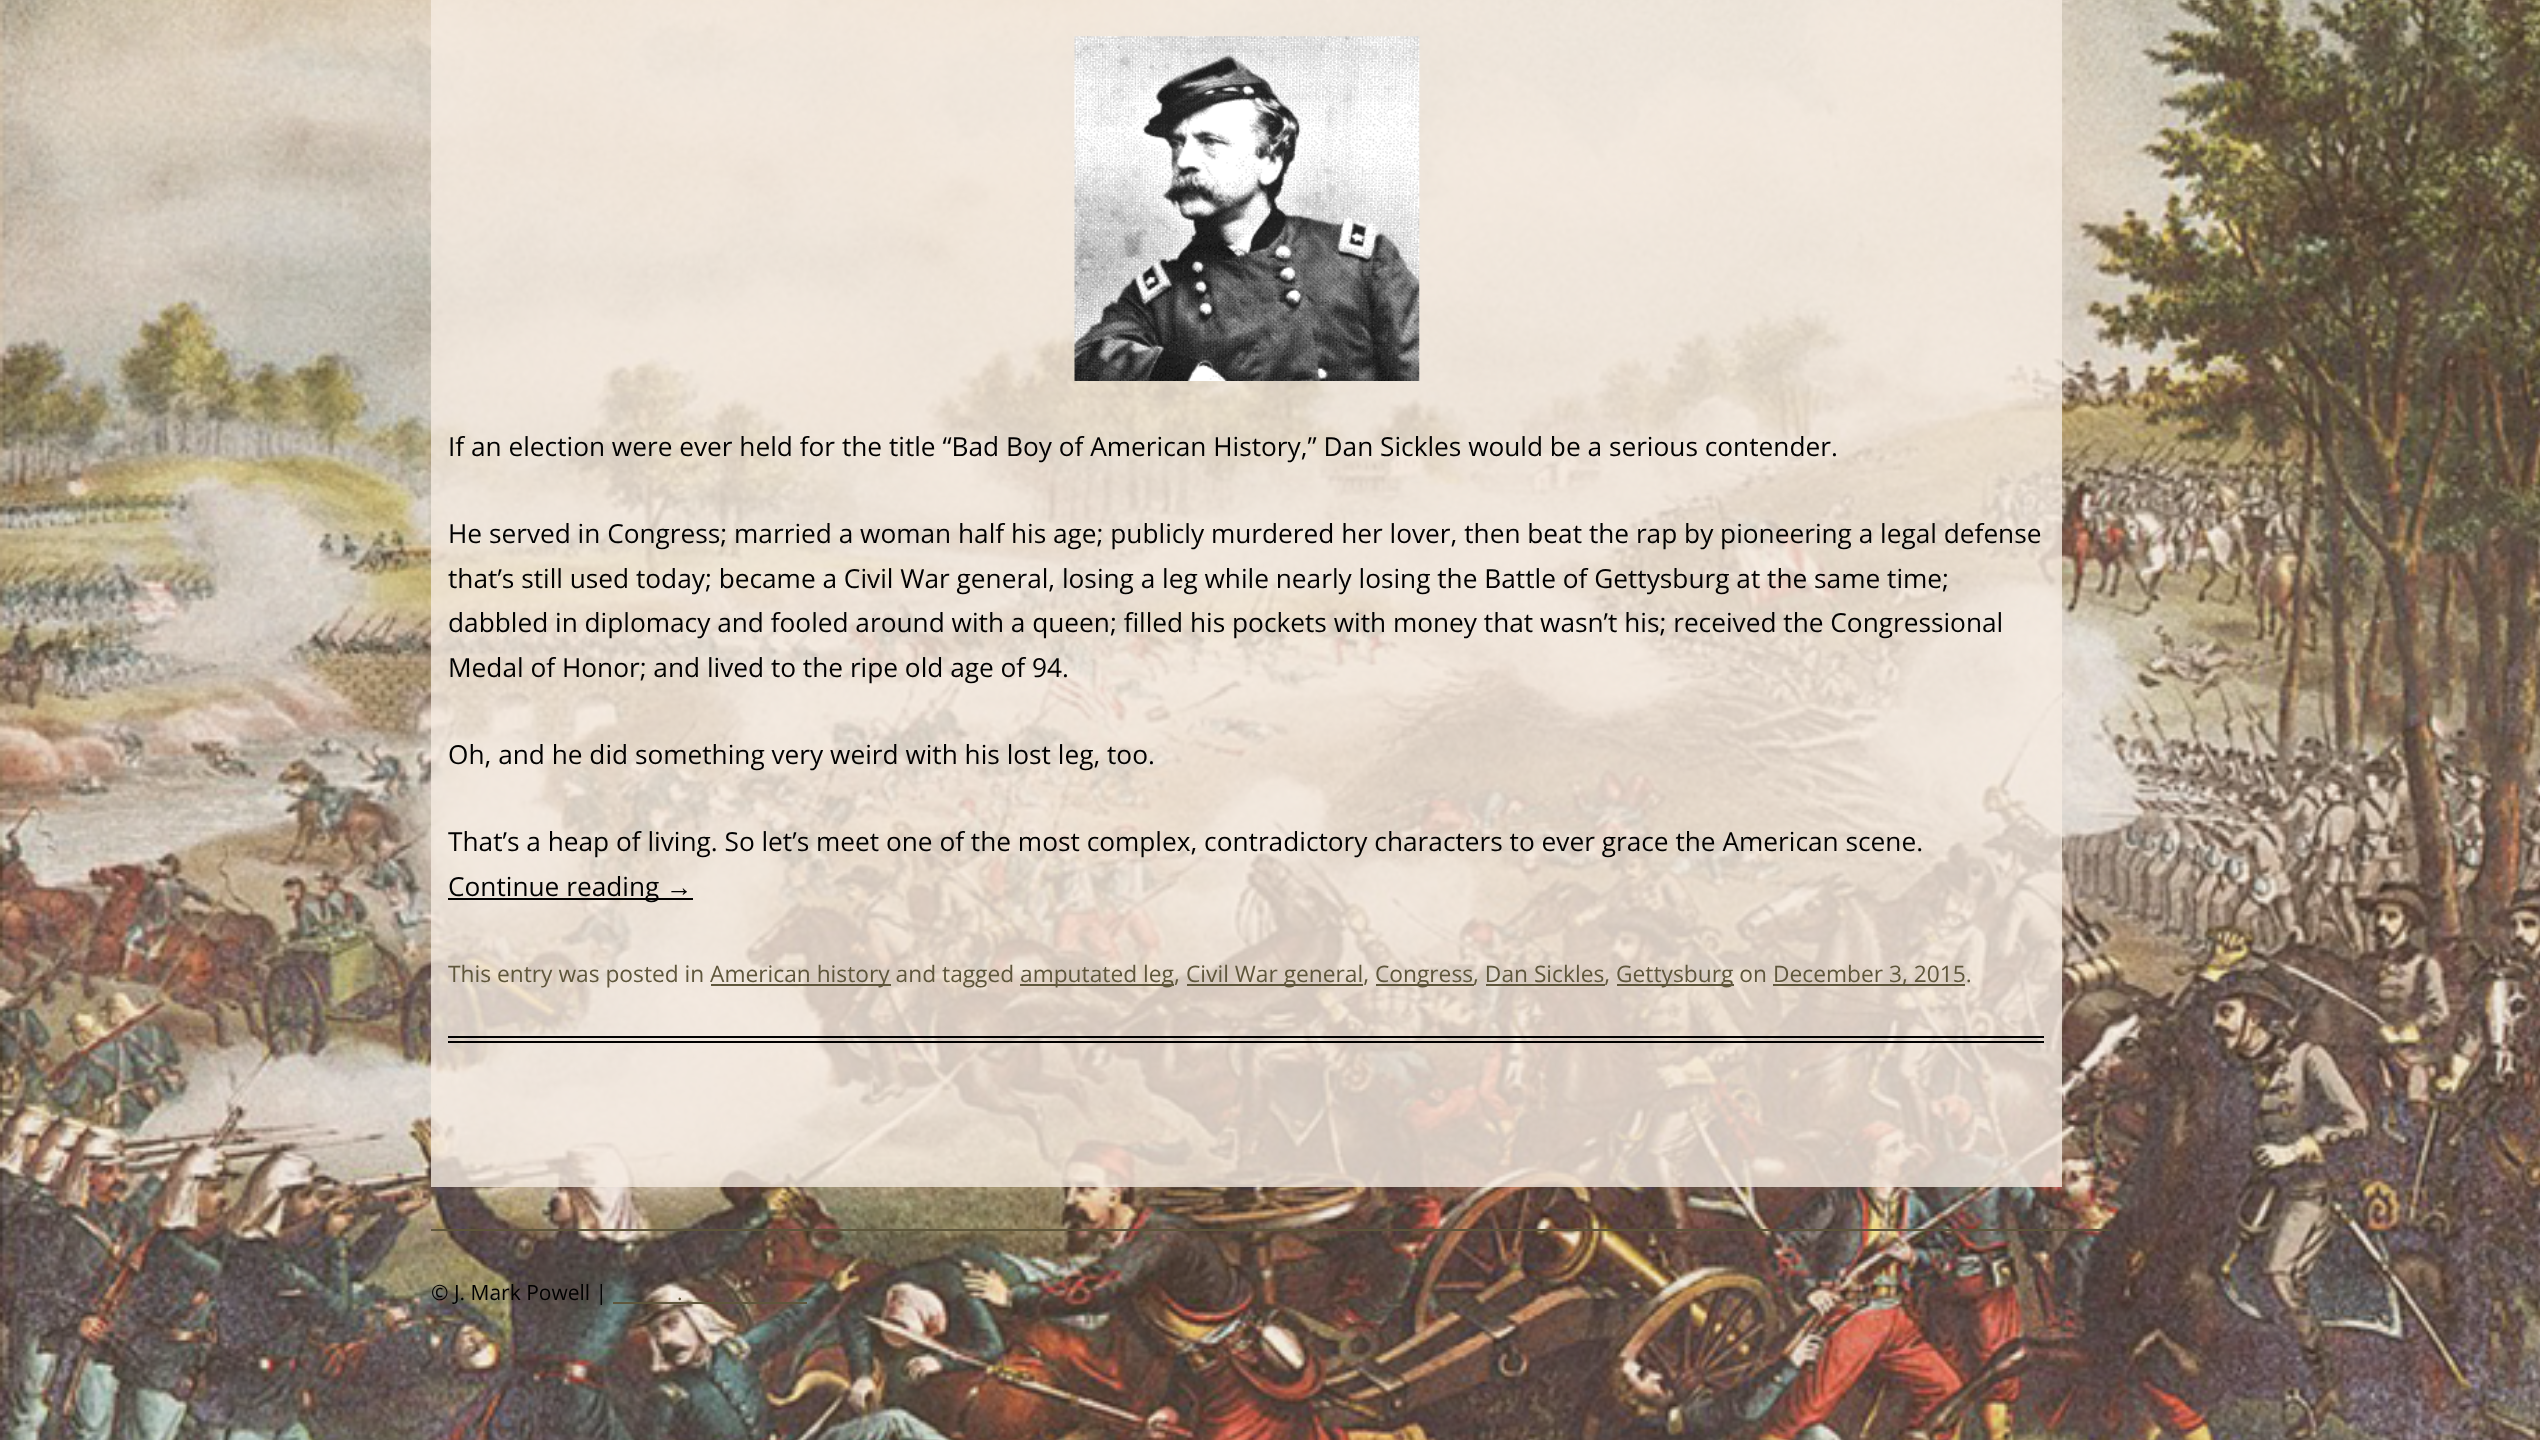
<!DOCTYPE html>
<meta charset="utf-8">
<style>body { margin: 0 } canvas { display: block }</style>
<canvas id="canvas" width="2540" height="1440"></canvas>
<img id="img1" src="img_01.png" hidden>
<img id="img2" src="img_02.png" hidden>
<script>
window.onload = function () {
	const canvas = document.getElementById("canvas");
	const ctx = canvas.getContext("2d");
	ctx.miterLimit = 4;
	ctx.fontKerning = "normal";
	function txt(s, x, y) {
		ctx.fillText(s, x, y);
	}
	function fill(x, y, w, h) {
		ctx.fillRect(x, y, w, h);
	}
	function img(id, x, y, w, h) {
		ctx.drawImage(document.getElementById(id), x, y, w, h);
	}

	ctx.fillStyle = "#FFFFFF";
	fill(0, 0, 2540, 1440);
	img("img1", 0, 0, 2540, 1440);
	ctx.fillStyle = "rgba(245, 235, 225, 0.8)";
	fill(431, 0, 1631, 1187);
	ctx.fillStyle = "#000000";
	fill(448, 1036, 1596, 2);
	fill(448, 1041, 1596, 2);
	img("img2", 1074, 36, 346, 345);
	fill(448, 898, 245, 2);
	ctx.fillStyle = "#5E563B";
	fill(711, 984, 180, 2);
	fill(1020, 984, 154, 2);
	fill(1187, 984, 176, 2);
	fill(1376, 984, 98, 2);
	fill(1617, 984, 117, 2);
	fill(1773, 984, 192, 2);
	fill(1486, 984, 119, 2);
	fill(431, 1229, 1680, 2);
	fill(613, 1302, 194, 2);
	ctx.font = "26.25px Open Sans";
	ctx.fillStyle = "#000000";
	txt("If an election were ever held for the title “Bad Boy of American History,” Dan Sickles would be a serious contender.", 448, 456);
	txt("He served in Congress; married a woman half his age; publicly murdered her lover, then beat the rap by pioneering a legal defense", 448, 543);
	txt("that’s still used today; became a Civil War general, losing a leg while nearly losing the Battle of Gettysburg at the same time;", 448, 588);
	txt("dabbled in diplomacy and fooled around with a queen; filled his pockets with money that wasn’t his; received the Congressional", 448, 632);
	txt("Medal of Honor; and lived to the ripe old age of 94.", 448, 677);
	txt("Oh, and he did something very weird with his lost leg, too.", 448, 764);
	txt("That’s a heap of living. So let’s meet one of the most complex, contradictory characters to ever grace the American scene.", 448, 851);
	txt("Continue reading", 448, 896);
	ctx.font = "26.25px Liberation Sans";
	txt("→", 666, 896);
	ctx.font = "22.75px Open Sans";
	ctx.fillStyle = "#5E563B";
	txt("This entry was posted in", 448, 982);
	txt("American history and tagged", 710, 982);
	txt("amputated leg,", 1020, 982);
	txt("Civil War general,", 1186, 982);
	txt("Congress, Dan Sickles,", 1375, 982);
	txt("Gettysburg on", 1616, 982);
	txt("December 3, 2015.", 1773, 982);
	ctx.font = "21px Open Sans";
	ctx.fillStyle = "#000000";
	txt("© J. Mark Powell |", 431, 1300);
	ctx.fillStyle = "#5E563B";
	txt(".", 677, 1300);
};
</script>
